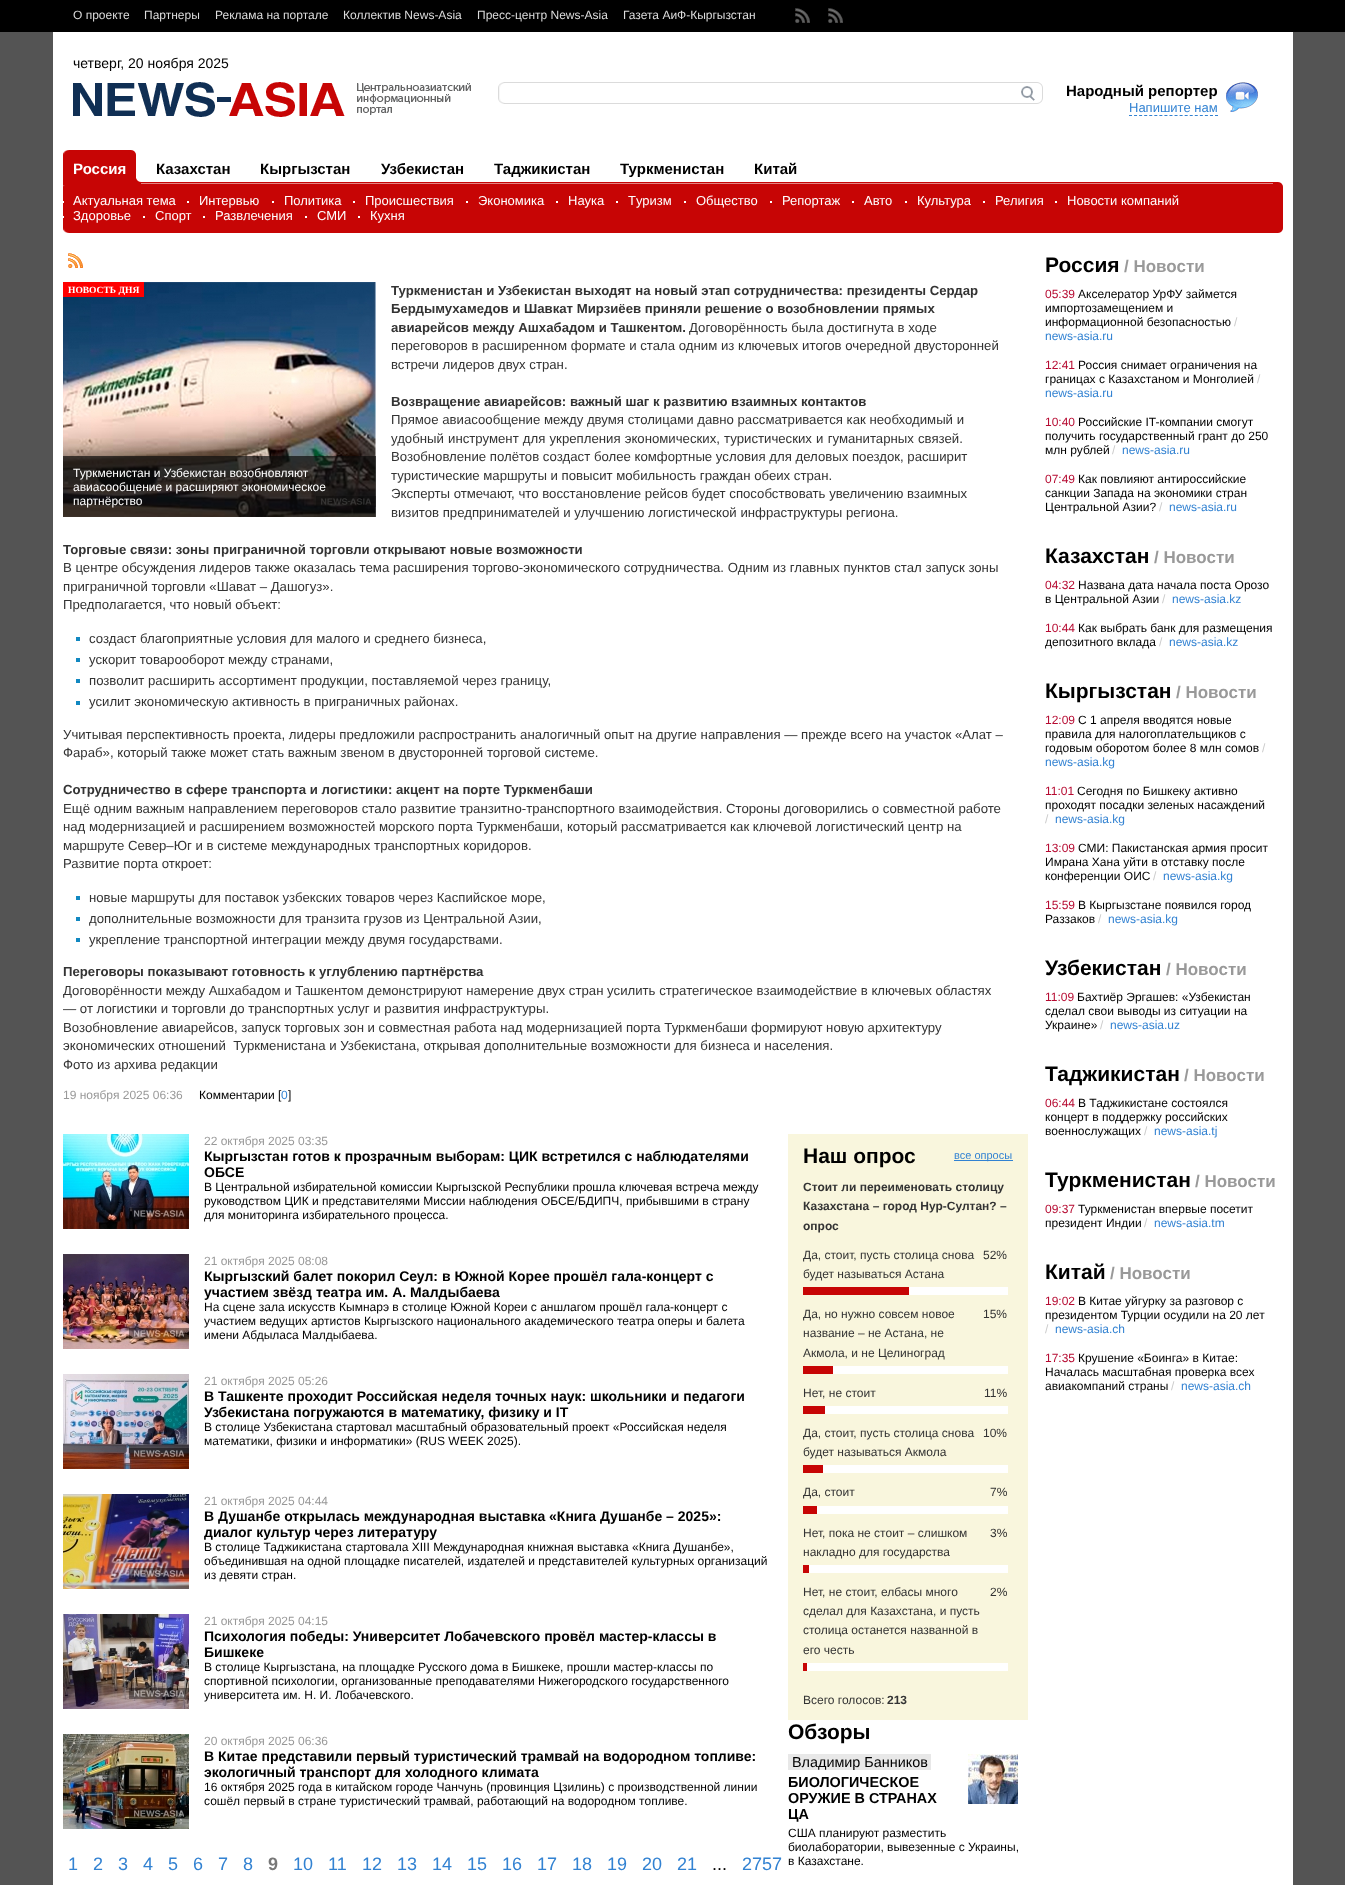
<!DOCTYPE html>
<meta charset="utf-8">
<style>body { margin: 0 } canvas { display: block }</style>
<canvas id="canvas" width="1345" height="1885"></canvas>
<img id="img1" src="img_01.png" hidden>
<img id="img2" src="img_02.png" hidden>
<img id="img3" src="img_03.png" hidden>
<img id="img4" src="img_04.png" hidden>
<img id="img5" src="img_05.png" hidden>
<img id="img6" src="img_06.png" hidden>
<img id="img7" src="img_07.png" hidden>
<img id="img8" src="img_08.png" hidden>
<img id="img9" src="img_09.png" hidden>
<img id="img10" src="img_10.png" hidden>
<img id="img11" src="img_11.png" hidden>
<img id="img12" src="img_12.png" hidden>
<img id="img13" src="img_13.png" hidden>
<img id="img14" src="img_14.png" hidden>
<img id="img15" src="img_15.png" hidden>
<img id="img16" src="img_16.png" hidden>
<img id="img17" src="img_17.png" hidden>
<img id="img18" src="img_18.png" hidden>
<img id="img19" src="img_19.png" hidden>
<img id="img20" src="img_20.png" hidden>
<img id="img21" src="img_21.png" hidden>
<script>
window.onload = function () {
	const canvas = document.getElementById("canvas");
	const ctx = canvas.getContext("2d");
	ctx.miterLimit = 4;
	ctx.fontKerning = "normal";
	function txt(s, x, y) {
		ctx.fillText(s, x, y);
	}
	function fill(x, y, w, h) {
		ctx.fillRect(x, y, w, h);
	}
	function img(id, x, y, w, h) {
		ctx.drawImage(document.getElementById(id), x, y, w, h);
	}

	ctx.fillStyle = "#545454";
	fill(0, 0, 1345, 1885);
	ctx.fillStyle = "#000000";
	fill(0, 0, 1345, 32);
	img("img1", 795, 8, 15, 15);
	img("img1", 828, 8, 15, 15);
	ctx.fillStyle = "#FFFFFF";
	fill(53, 32, 1240, 1853);
	img("img2", 73, 82, 398, 35);
	img("img3", 498, 82, 7, 22);
	img("img4", 1037, 82, 6, 22);
	ctx.fillStyle = "#DBDBDB";
	fill(504, 82, 533, 1);
	fill(504, 103, 533, 1);
	img("img5", 1021, 86, 14, 15);
	img("img6", 1226, 82, 32, 30);
	ctx.beginPath();
	ctx.moveTo(1129, 115.5);
	ctx.lineTo(1218, 115.5);
	ctx.strokeStyle = "#3282D2";
	ctx.setLineDash([3, 2.06]);
	ctx.stroke();
	ctx.fillStyle = "#C70505";
	fill(63, 150, 73, 32);
	img("img7", 63, 150, 6, 5);
	img("img8", 131, 150, 5, 5);
	fill(63, 182, 1220, 51);
	img("img9", 136, 178, 5, 6);
	img("img10", 63, 185, 6, 2);
	img("img8", 1278, 182, 5, 5);
	img("img11", 63, 228, 6, 5);
	img("img12", 1278, 228, 5, 5);
	ctx.fillStyle = "#E38282";
	fill(141, 183, 1132, 1);
	ctx.fillStyle = "#FFFFFF";
	fill(63, 201, 1, 2);
	fill(187, 201, 2, 2);
	fill(272, 201, 2, 2);
	fill(353, 201, 2, 2);
	fill(466, 201, 2, 2);
	fill(556, 201, 2, 2);
	fill(616, 201, 2, 2);
	fill(684, 201, 2, 2);
	fill(770, 201, 2, 2);
	fill(852, 201, 2, 2);
	fill(905, 201, 2, 2);
	fill(983, 201, 2, 2);
	fill(1055, 201, 2, 2);
	fill(63, 216, 1, 2);
	fill(143, 216, 2, 2);
	fill(203, 216, 2, 2);
	fill(305, 216, 2, 2);
	fill(358, 216, 2, 2);
	img("img13", 68, 253, 15, 15);
	ctx.fillStyle = "#1188C1";
	fill(76, 637, 4, 4);
	fill(76, 658, 4, 4);
	fill(76, 679, 4, 4);
	fill(76, 701, 4, 4);
	fill(76, 896, 4, 4);
	fill(76, 917, 4, 4);
	fill(76, 938, 4, 4);
	img("img14", 63, 282, 313, 235);
	ctx.fillStyle = "#FF0000";
	fill(63, 282, 81, 15);
	ctx.fillStyle = "rgba(13, 13, 13, 0.7)";
	fill(63, 456, 313, 61);
	img("img15", 63, 1134, 126, 95);
	img("img16", 63, 1254, 126, 95);
	img("img17", 63, 1374, 126, 95);
	img("img18", 63, 1494, 126, 95);
	img("img19", 63, 1614, 126, 95);
	img("img20", 63, 1734, 126, 95);
	ctx.fillStyle = "#F9F6DD";
	fill(788, 1134, 240, 586);
	ctx.fillStyle = "#3282D2";
	fill(954, 1160, 59, 1);
	ctx.fillStyle = "#FFFFFF";
	fill(909, 1287, 99, 8);
	ctx.fillStyle = "#C70505";
	fill(803, 1287, 106, 8);
	ctx.fillStyle = "#FFFFFF";
	fill(833, 1366, 175, 8);
	ctx.fillStyle = "#C70505";
	fill(803, 1366, 30, 8);
	ctx.fillStyle = "#FFFFFF";
	fill(825, 1406, 183, 8);
	ctx.fillStyle = "#C70505";
	fill(803, 1406, 22, 8);
	ctx.fillStyle = "#FFFFFF";
	fill(823, 1465, 185, 8);
	ctx.fillStyle = "#C70505";
	fill(803, 1465, 20, 8);
	ctx.fillStyle = "#FFFFFF";
	fill(817, 1506, 191, 8);
	ctx.fillStyle = "#C70505";
	fill(803, 1506, 14, 8);
	ctx.fillStyle = "#FFFFFF";
	fill(803, 1565, 205, 8);
	ctx.fillStyle = "#C70505";
	fill(803, 1565, 6, 8);
	ctx.fillStyle = "#FFFFFF";
	fill(803, 1663, 205, 8);
	ctx.fillStyle = "#C70505";
	fill(803, 1663, 4, 8);
	ctx.fillStyle = "#E8E8E8";
	fill(788, 1754, 143, 16);
	img("img21", 968, 1754, 50, 50);
	ctx.font = "12px Liberation Sans";
	ctx.fillStyle = "#DCDCDC";
	txt("О проекте", 73, 19);
	txt("Партнеры", 144, 19);
	txt("Реклама на портале", 215, 19);
	txt("Коллектив News-Asia", 343, 19);
	txt("Пресс-центр News-Asia", 477, 19);
	txt("Газета АиФ-Кыргызстан", 623, 19);
	ctx.font = "14px Liberation Sans";
	ctx.fillStyle = "#000000";
	txt("четверг, 20 ноября 2025", 73, 68);
	ctx.font = "bold 15px Liberation Sans";
	txt("Народный репортер", 1066, 96);
	ctx.font = "13px Liberation Sans";
	ctx.fillStyle = "#3282D2";
	txt("Напишите нам", 1129, 112);
	ctx.font = "bold 15px Liberation Sans";
	ctx.fillStyle = "#FFFFFF";
	txt("Россия", 73, 174);
	ctx.fillStyle = "#000000";
	txt("Казахстан", 156, 174);
	txt("Кыргызстан", 260, 174);
	txt("Узбекистан", 381, 174);
	txt("Таджикистан", 494, 174);
	txt("Туркменистан", 620, 174);
	txt("Китай", 754, 174);
	ctx.font = "13px Liberation Sans";
	ctx.fillStyle = "#FFFFFF";
	txt("Актуальная тема", 73, 205);
	txt("Интервью", 199, 205);
	txt("Политика", 284, 205);
	txt("Происшествия", 365, 205);
	txt("Экономика", 478, 205);
	txt("Наука", 568, 205);
	txt("Tуризм", 628, 205);
	txt("Общество", 696, 205);
	txt("Репортаж", 782, 205);
	txt("Авто", 864, 205);
	txt("Культура", 917, 205);
	txt("Религия", 995, 205);
	txt("Новости компаний", 1067, 205);
	txt("Здоровье", 73, 220);
	txt("Спорт", 155, 220);
	txt("Развлечения", 215, 220);
	txt("СМИ", 317, 220);
	txt("Кухня", 370, 220);
	ctx.font = "bold 13.2px Liberation Sans";
	ctx.fillStyle = "#333333";
	txt("Туркменистан и Узбекистан выходят на новый этап сотрудничества: президенты Сердар", 391, 295);
	txt("Бердымухамедов и Шавкат Мирзиёев приняли решение о возобновлении прямых", 391, 313);
	txt("авиарейсов между Ашхабадом и Ташкентом.", 391, 332);
	ctx.font = "13.2px Liberation Sans";
	txt("Договорённость была достигнута в ходе", 689, 332);
	txt("переговоров в расширенном формате и стала одним из ключевых итогов очередной двусторонней", 391, 350);
	txt("встречи лидеров двух стран.", 391, 369);
	ctx.font = "bold 13.2px Liberation Sans";
	txt("Возвращение авиарейсов: важный шаг к развитию взаимных контактов", 391, 406);
	ctx.font = "13.2px Liberation Sans";
	txt("Прямое авиасообщение между двумя столицами давно рассматривается как необходимый и", 391, 424);
	ctx.wordSpacing = "0.5px";
	txt("удобный инструмент для укрепления экономических, туристических и гуманитарных связей.", 391, 443);
	ctx.wordSpacing = "0px";
	txt("Возобновление полётов создаст более комфортные условия для деловых поездок, расширит", 391, 461);
	txt("туристические маршруты и повысит мобильность граждан обеих стран.", 391, 480);
	txt("Эксперты отмечают, что восстановление рейсов будет способствовать увеличению взаимных", 391, 498);
	txt("визитов предпринимателей и улучшению логистической инфраструктуры региона.", 391, 517);
	ctx.font = "bold 13.2px Liberation Sans";
	txt("Торговые связи: зоны приграничной торговли открывают новые возможности", 63, 554);
	ctx.font = "13.2px Liberation Sans";
	txt("В центре обсуждения лидеров также оказалась тема расширения торгово-экономического сотрудничества. Одним из главных пунктов стал запуск зоны", 63, 572);
	txt("приграничной торговли «Шават – Дашогуз».", 63, 591);
	txt("Предполагается, что новый объект:", 63, 609);
	txt("создаст благоприятные условия для малого и среднего бизнеса,", 89, 643);
	txt("ускорит товарооборот между странами,", 89, 664);
	txt("позволит расширить ассортимент продукции, поставляемой через границу,", 89, 685);
	txt("усилит экономическую активность в приграничных районах.", 89, 706);
	txt("Учитывая перспективность проекта, лидеры предложили распространить аналогичный опыт на другие направления — прежде всего на участок «Алат –", 63, 739);
	txt("Фараб», который также может стать важным звеном в двусторонней торговой системе.", 63, 757);
	ctx.font = "bold 13.2px Liberation Sans";
	txt("Сотрудничество в сфере транспорта и логистики: акцент на порте Туркменбаши", 63, 794);
	ctx.font = "13.2px Liberation Sans";
	txt("Ещё одним важным направлением переговоров стало развитие транзитно-транспортного взаимодействия. Стороны договорились о совместной работе", 63, 813);
	txt("над модернизацией и расширением возможностей морского порта Туркменбаши, который рассматривается как ключевой логистический центр на", 63, 831);
	txt("маршруте Север–Юг и в системе международных транспортных коридоров.", 63, 850);
	txt("Развитие порта откроет:", 63, 868);
	txt("новые маршруты для поставок узбекских товаров через Каспийское море,", 89, 902);
	txt("дополнительные возможности для транзита грузов из Центральной Азии,", 89, 923);
	txt("укрепление транспортной интеграции между двумя государствами.", 89, 944);
	ctx.font = "bold 13.2px Liberation Sans";
	txt("Переговоры показывают готовность к углублению партнёрства", 63, 976);
	ctx.font = "13.2px Liberation Sans";
	txt("Договорённости между Ашхабадом и Ташкентом демонстрируют намерение двух стран усилить стратегическое взаимодействие в ключевых областях", 63, 995);
	txt("— от логистики и торговли до транспортных услуг и развития инфраструктуры.", 63, 1013);
	txt("Возобновление авиарейсов, запуск торговых зон и совместная работа над модернизацией порта Туркменбаши формируют новую архитектуру", 63, 1032);
	txt("экономических отношений  Туркменистана и Узбекистана, открывая дополнительные возможности для бизнеса и населения.", 63, 1050);
	txt("Фото из архива редакции", 63, 1069);
	ctx.font = "bold 9.5px Liberation Serif";
	ctx.fillStyle = "#FFFFFF";
	txt("НОВОСТЬ ДНЯ", 68, 293);
	ctx.font = "12px Liberation Sans";
	txt("Туркменистан и Узбекистан возобновляют", 73, 477);
	txt("авиасообщение и расширяют экономическое", 73, 491);
	txt("партнёрство", 73, 505);
	ctx.fillStyle = "#999999";
	txt("19 ноября 2025 06:36", 63, 1099);
	ctx.fillStyle = "#000000";
	txt("Комментарии [", 199, 1099);
	ctx.fillStyle = "#3282D2";
	txt("0", 281, 1099);
	ctx.fillStyle = "#000000";
	txt("]", 288, 1099);
	ctx.fillStyle = "#999999";
	txt("22 октября 2025 03:35", 204, 1145);
	ctx.font = "bold 14px Liberation Sans";
	ctx.fillStyle = "#000000";
	txt("Кыргызстан готов к прозрачным выборам: ЦИК встретился с наблюдателями", 204, 1161);
	txt("ОБСЕ", 204, 1177);
	ctx.font = "12px Liberation Sans";
	txt("В Центральной избирательной комиссии Кыргызской Республики прошла ключевая встреча между", 204, 1191);
	txt("руководством ЦИК и представителями Миссии наблюдения ОБСЕ/БДИПЧ, прибывшими в страну", 204, 1205);
	txt("для мониторинга избирательного процесса.", 204, 1219);
	ctx.fillStyle = "#999999";
	txt("21 октября 2025 08:08", 204, 1265);
	ctx.font = "bold 14px Liberation Sans";
	ctx.fillStyle = "#000000";
	txt("Кыргызский балет покорил Сеул: в Южной Корее прошёл гала-концерт с", 204, 1281);
	txt("участием звёзд театра им. А. Малдыбаева", 204, 1297);
	ctx.font = "12px Liberation Sans";
	txt("На сцене зала искусств Кымнарэ в столице Южной Кореи с аншлагом прошёл гала-концерт с", 204, 1311);
	txt("участием ведущих артистов Кыргызского национального академического театра оперы и балета", 204, 1325);
	txt("имени Абдыласа Малдыбаева.", 204, 1339);
	ctx.fillStyle = "#999999";
	txt("21 октября 2025 05:26", 204, 1385);
	ctx.font = "bold 14px Liberation Sans";
	ctx.fillStyle = "#000000";
	txt("В Ташкенте проходит Российская неделя точных наук: школьники и педагоги", 204, 1401);
	txt("Узбекистана погружаются в математику, физику и IT", 204, 1417);
	ctx.font = "12px Liberation Sans";
	txt("В столице Узбекистана стартовал масштабный образовательный проект «Российская неделя", 204, 1431);
	txt("математики, физики и информатики» (RUS WEEK 2025).", 204, 1445);
	ctx.fillStyle = "#999999";
	txt("21 октября 2025 04:44", 204, 1505);
	ctx.font = "bold 14px Liberation Sans";
	ctx.fillStyle = "#000000";
	txt("В Душанбе открылась международная выставка «Книга Душанбе – 2025»:", 204, 1521);
	txt("диалог культур через литературу", 204, 1537);
	ctx.font = "12px Liberation Sans";
	txt("В столице Таджикистана стартовала XIII Международная книжная выставка «Книга Душанбе»,", 204, 1551);
	txt("объединившая на одной площадке писателей, издателей и представителей культурных организаций", 204, 1565);
	txt("из девяти стран.", 204, 1579);
	ctx.fillStyle = "#999999";
	txt("21 октября 2025 04:15", 204, 1625);
	ctx.font = "bold 14px Liberation Sans";
	ctx.fillStyle = "#000000";
	txt("Психология победы: Университет Лобачевского провёл мастер-классы в", 204, 1641);
	txt("Бишкеке", 204, 1657);
	ctx.font = "12px Liberation Sans";
	txt("В столице Кыргызстана, на площадке Русского дома в Бишкеке, прошли мастер-классы по", 204, 1671);
	txt("спортивной психологии, организованные преподавателями Нижегородского государственного", 204, 1685);
	txt("университета им. Н. И. Лобачевского.", 204, 1699);
	ctx.fillStyle = "#999999";
	txt("20 октября 2025 06:36", 204, 1745);
	ctx.font = "bold 14px Liberation Sans";
	ctx.fillStyle = "#000000";
	txt("В Китае представили первый туристический трамвай на водородном топливе:", 204, 1761);
	txt("экологичный транспорт для холодного климата", 204, 1777);
	ctx.font = "12px Liberation Sans";
	txt("16 октября 2025 года в китайском городе Чанчунь (провинция Цзилинь) с производственной линии", 204, 1791);
	txt("сошёл первый в стране туристический трамвай, работающий на водородном топливе.", 204, 1805);
	ctx.font = "18px Liberation Sans";
	ctx.fillStyle = "#3282D2";
	txt("1", 68, 1870);
	txt("2", 93, 1870);
	txt("3", 118, 1870);
	txt("4", 143, 1870);
	txt("5", 168, 1870);
	txt("6", 193, 1870);
	txt("7", 218, 1870);
	txt("8", 243, 1870);
	ctx.font = "bold 18px Liberation Sans";
	ctx.fillStyle = "#777777";
	txt("9", 268, 1870);
	ctx.font = "18px Liberation Sans";
	ctx.fillStyle = "#3282D2";
	txt("10", 293, 1870);
	txt("11", 328, 1870);
	txt("12", 362, 1870);
	txt("13", 397, 1870);
	txt("14", 432, 1870);
	txt("15", 467, 1870);
	txt("16", 502, 1870);
	txt("17", 537, 1870);
	txt("18", 572, 1870);
	txt("19", 607, 1870);
	txt("20", 642, 1870);
	txt("21", 677, 1870);
	ctx.fillStyle = "#000000";
	txt("...", 712, 1870);
	ctx.fillStyle = "#3282D2";
	txt("2757", 742, 1870);
	ctx.font = "bold 21px Liberation Sans";
	ctx.fillStyle = "#000000";
	txt("Наш опрос", 803, 1163);
	ctx.font = "11px Liberation Sans";
	ctx.fillStyle = "#3282D2";
	txt("все опросы", 954, 1159);
	ctx.font = "bold 12px Liberation Sans";
	ctx.fillStyle = "#333333";
	txt("Стоит ли переименовать столицу", 803, 1191);
	txt("Казахстана – город Нур-Султан? –", 803, 1210);
	txt("опрос", 803, 1230);
	ctx.font = "12px Liberation Sans";
	txt("Да, стоит, пусть столица снова", 803, 1259);
	txt("будет называться Астана", 803, 1278);
	txt("52%", 983, 1259);
	txt("Да, но нужно совсем новое", 803, 1318);
	txt("название – не Астана, не", 803, 1337);
	txt("Акмола, и не Целиноград", 803, 1357);
	txt("15%", 983, 1318);
	txt("Нет, не стоит", 803, 1397);
	txt("11%", 984, 1397);
	txt("Да, стоит, пусть столица снова", 803, 1437);
	txt("будет называться Акмола", 803, 1456);
	txt("10%", 983, 1437);
	txt("Да, стоит", 803, 1496);
	txt("7%", 990, 1496);
	txt("Нет, пока не стоит – слишком", 803, 1537);
	txt("накладно для государства", 803, 1556);
	txt("3%", 990, 1537);
	txt("Нет, не стоит, елбасы много", 803, 1596);
	txt("сделал для Казахстана, и пусть", 803, 1615);
	txt("столица останется названной в", 803, 1634);
	txt("его честь", 803, 1654);
	txt("2%", 990, 1596);
	txt("Всего голосов:", 803, 1704);
	ctx.font = "bold 12px Liberation Sans";
	txt("213", 887, 1704);
	ctx.font = "bold 21px Liberation Sans";
	ctx.fillStyle = "#000000";
	txt("Обзоры", 788, 1739);
	ctx.font = "14.4px Liberation Sans";
	txt("Владимир Банников", 792, 1767);
	ctx.font = "bold 14.4px Liberation Sans";
	txt("БИОЛОГИЧЕСКОЕ", 788, 1787);
	txt("ОРУЖИЕ В СТРАНАХ", 788, 1803);
	txt("ЦА", 788, 1819);
	ctx.font = "12px Liberation Sans";
	txt("США планируют разместить", 788, 1837);
	txt("биолаборатории, вывезенные с Украины,", 788, 1851);
	txt("в Казахстане.", 788, 1865);
	ctx.font = "bold 21px Liberation Sans";
	txt("Россия", 1045, 272);
	ctx.font = "bold 17px Liberation Sans";
	ctx.fillStyle = "#999999";
	txt("/ Новости", 1124, 272);
	ctx.font = "12px Liberation Sans";
	ctx.fillStyle = "#B60A31";
	txt("05:39", 1045, 298);
	ctx.fillStyle = "#000000";
	txt("Акселератор УрФУ займется", 1078, 298);
	txt("импортозамещением и", 1045, 312);
	txt("информационной безопасностью", 1045, 326);
	ctx.fillStyle = "#CCCCCC";
	txt("/", 1234, 326);
	ctx.fillStyle = "#3282D2";
	txt("news-asia.ru", 1045, 340);
	ctx.fillStyle = "#B60A31";
	txt("12:41", 1045, 369);
	ctx.fillStyle = "#000000";
	txt("Россия снимает ограничения на", 1078, 369);
	txt("границах с Казахстаном и Монголией", 1045, 383);
	ctx.fillStyle = "#CCCCCC";
	txt("/", 1257, 383);
	ctx.fillStyle = "#3282D2";
	txt("news-asia.ru", 1045, 397);
	ctx.fillStyle = "#B60A31";
	txt("10:40", 1045, 426);
	ctx.fillStyle = "#000000";
	txt("Российские IT-компании смогут", 1078, 426);
	txt("получить государственный грант до 250", 1045, 440);
	txt("млн рублей", 1045, 454);
	ctx.fillStyle = "#CCCCCC";
	txt("/", 1112, 454);
	ctx.fillStyle = "#3282D2";
	txt("news-asia.ru", 1122, 454);
	ctx.fillStyle = "#B60A31";
	txt("07:49", 1045, 483);
	ctx.fillStyle = "#000000";
	txt("Как повлияют антироссийские", 1078, 483);
	txt("санкции Запада на экономики стран", 1045, 497);
	txt("Центральной Азии?", 1045, 511);
	ctx.fillStyle = "#CCCCCC";
	txt("/", 1159, 511);
	ctx.fillStyle = "#3282D2";
	txt("news-asia.ru", 1169, 511);
	ctx.font = "bold 21px Liberation Sans";
	ctx.fillStyle = "#000000";
	txt("Казахстан", 1045, 563);
	ctx.font = "bold 17px Liberation Sans";
	ctx.fillStyle = "#999999";
	txt("/ Новости", 1154, 563);
	ctx.font = "12px Liberation Sans";
	ctx.fillStyle = "#B60A31";
	txt("04:32", 1045, 589);
	ctx.fillStyle = "#000000";
	txt("Названа дата начала поста Орозо", 1078, 589);
	txt("в Центральной Азии", 1045, 603);
	ctx.fillStyle = "#CCCCCC";
	txt("/", 1162, 603);
	ctx.fillStyle = "#3282D2";
	txt("news-asia.kz", 1172, 603);
	ctx.fillStyle = "#B60A31";
	txt("10:44", 1045, 632);
	ctx.fillStyle = "#000000";
	txt("Как выбрать банк для размещения", 1078, 632);
	txt("депозитного вклада", 1045, 646);
	ctx.fillStyle = "#CCCCCC";
	txt("/", 1159, 646);
	ctx.fillStyle = "#3282D2";
	txt("news-asia.kz", 1169, 646);
	ctx.font = "bold 21px Liberation Sans";
	ctx.fillStyle = "#000000";
	txt("Кыргызстан", 1045, 698);
	ctx.font = "bold 17px Liberation Sans";
	ctx.fillStyle = "#999999";
	txt("/ Новости", 1176, 698);
	ctx.font = "12px Liberation Sans";
	ctx.fillStyle = "#B60A31";
	txt("12:09", 1045, 724);
	ctx.fillStyle = "#000000";
	txt("С 1 апреля вводятся новые", 1078, 724);
	txt("правила для налогоплательщиков с", 1045, 738);
	txt("годовым оборотом более 8 млн сомов", 1045, 752);
	ctx.fillStyle = "#CCCCCC";
	txt("/", 1262, 752);
	ctx.fillStyle = "#3282D2";
	txt("news-asia.kg", 1045, 766);
	ctx.fillStyle = "#B60A31";
	txt("11:01", 1045, 795);
	ctx.fillStyle = "#000000";
	txt("Сегодня по Бишкеку активно", 1077, 795);
	txt("проходят посадки зеленых насаждений", 1045, 809);
	ctx.fillStyle = "#CCCCCC";
	txt("/", 1045, 823);
	ctx.fillStyle = "#3282D2";
	txt("news-asia.kg", 1055, 823);
	ctx.fillStyle = "#B60A31";
	txt("13:09", 1045, 852);
	ctx.fillStyle = "#000000";
	txt("СМИ: Пакистанская армия просит", 1078, 852);
	txt("Имрана Хана уйти в отставку после", 1045, 866);
	txt("конференции ОИС", 1045, 880);
	ctx.fillStyle = "#CCCCCC";
	txt("/", 1153, 880);
	ctx.fillStyle = "#3282D2";
	txt("news-asia.kg", 1163, 880);
	ctx.fillStyle = "#B60A31";
	txt("15:59", 1045, 909);
	ctx.fillStyle = "#000000";
	txt("В Кыргызстане появился город", 1078, 909);
	txt("Раззаков", 1045, 923);
	ctx.fillStyle = "#CCCCCC";
	txt("/", 1098, 923);
	ctx.fillStyle = "#3282D2";
	txt("news-asia.kg", 1108, 923);
	ctx.font = "bold 21px Liberation Sans";
	ctx.fillStyle = "#000000";
	txt("Узбекистан", 1045, 975);
	ctx.font = "bold 17px Liberation Sans";
	ctx.fillStyle = "#999999";
	txt("/ Новости", 1166, 975);
	ctx.font = "12px Liberation Sans";
	ctx.fillStyle = "#B60A31";
	txt("11:09", 1045, 1001);
	ctx.fillStyle = "#000000";
	txt("Бахтиёр Эргашев: «Узбекистан", 1077, 1001);
	txt("сделал свои выводы из ситуации на", 1045, 1015);
	txt("Украине»", 1045, 1029);
	ctx.fillStyle = "#CCCCCC";
	txt("/", 1100, 1029);
	ctx.fillStyle = "#3282D2";
	txt("news-asia.uz", 1110, 1029);
	ctx.font = "bold 21px Liberation Sans";
	ctx.fillStyle = "#000000";
	txt("Таджикистан", 1045, 1081);
	ctx.font = "bold 17px Liberation Sans";
	ctx.fillStyle = "#999999";
	txt("/ Новости", 1184, 1081);
	ctx.font = "12px Liberation Sans";
	ctx.fillStyle = "#B60A31";
	txt("06:44", 1045, 1107);
	ctx.fillStyle = "#000000";
	txt("В Таджикистане состоялся", 1078, 1107);
	txt("концерт в поддержку российских", 1045, 1121);
	txt("военнослужащих", 1045, 1135);
	ctx.fillStyle = "#CCCCCC";
	txt("/", 1144, 1135);
	ctx.fillStyle = "#3282D2";
	txt("news-asia.tj", 1154, 1135);
	ctx.font = "bold 21px Liberation Sans";
	ctx.fillStyle = "#000000";
	txt("Туркменистан", 1045, 1187);
	ctx.font = "bold 17px Liberation Sans";
	ctx.fillStyle = "#999999";
	txt("/ Новости", 1195, 1187);
	ctx.font = "12px Liberation Sans";
	ctx.fillStyle = "#B60A31";
	txt("09:37", 1045, 1213);
	ctx.fillStyle = "#000000";
	txt("Туркменистан впервые посетит", 1078, 1213);
	txt("президент Индии", 1045, 1227);
	ctx.fillStyle = "#CCCCCC";
	txt("/", 1144, 1227);
	ctx.fillStyle = "#3282D2";
	txt("news-asia.tm", 1154, 1227);
	ctx.font = "bold 21px Liberation Sans";
	ctx.fillStyle = "#000000";
	txt("Китай", 1045, 1279);
	ctx.font = "bold 17px Liberation Sans";
	ctx.fillStyle = "#999999";
	txt("/ Новости", 1110, 1279);
	ctx.font = "12px Liberation Sans";
	ctx.fillStyle = "#B60A31";
	txt("19:02", 1045, 1305);
	ctx.fillStyle = "#000000";
	txt("В Китае уйгурку за разговор с", 1078, 1305);
	txt("президентом Турции осудили на 20 лет", 1045, 1319);
	ctx.fillStyle = "#CCCCCC";
	txt("/", 1045, 1333);
	ctx.fillStyle = "#3282D2";
	txt("news-asia.ch", 1055, 1333);
	ctx.fillStyle = "#B60A31";
	txt("17:35", 1045, 1362);
	ctx.fillStyle = "#000000";
	txt("Крушение «Боинга» в Китае:", 1078, 1362);
	txt("Началась масштабная проверка всех", 1045, 1376);
	txt("авиакомпаний страны", 1045, 1390);
	ctx.fillStyle = "#CCCCCC";
	txt("/", 1171, 1390);
	ctx.fillStyle = "#3282D2";
	txt("news-asia.ch", 1181, 1390);
};
</script>
